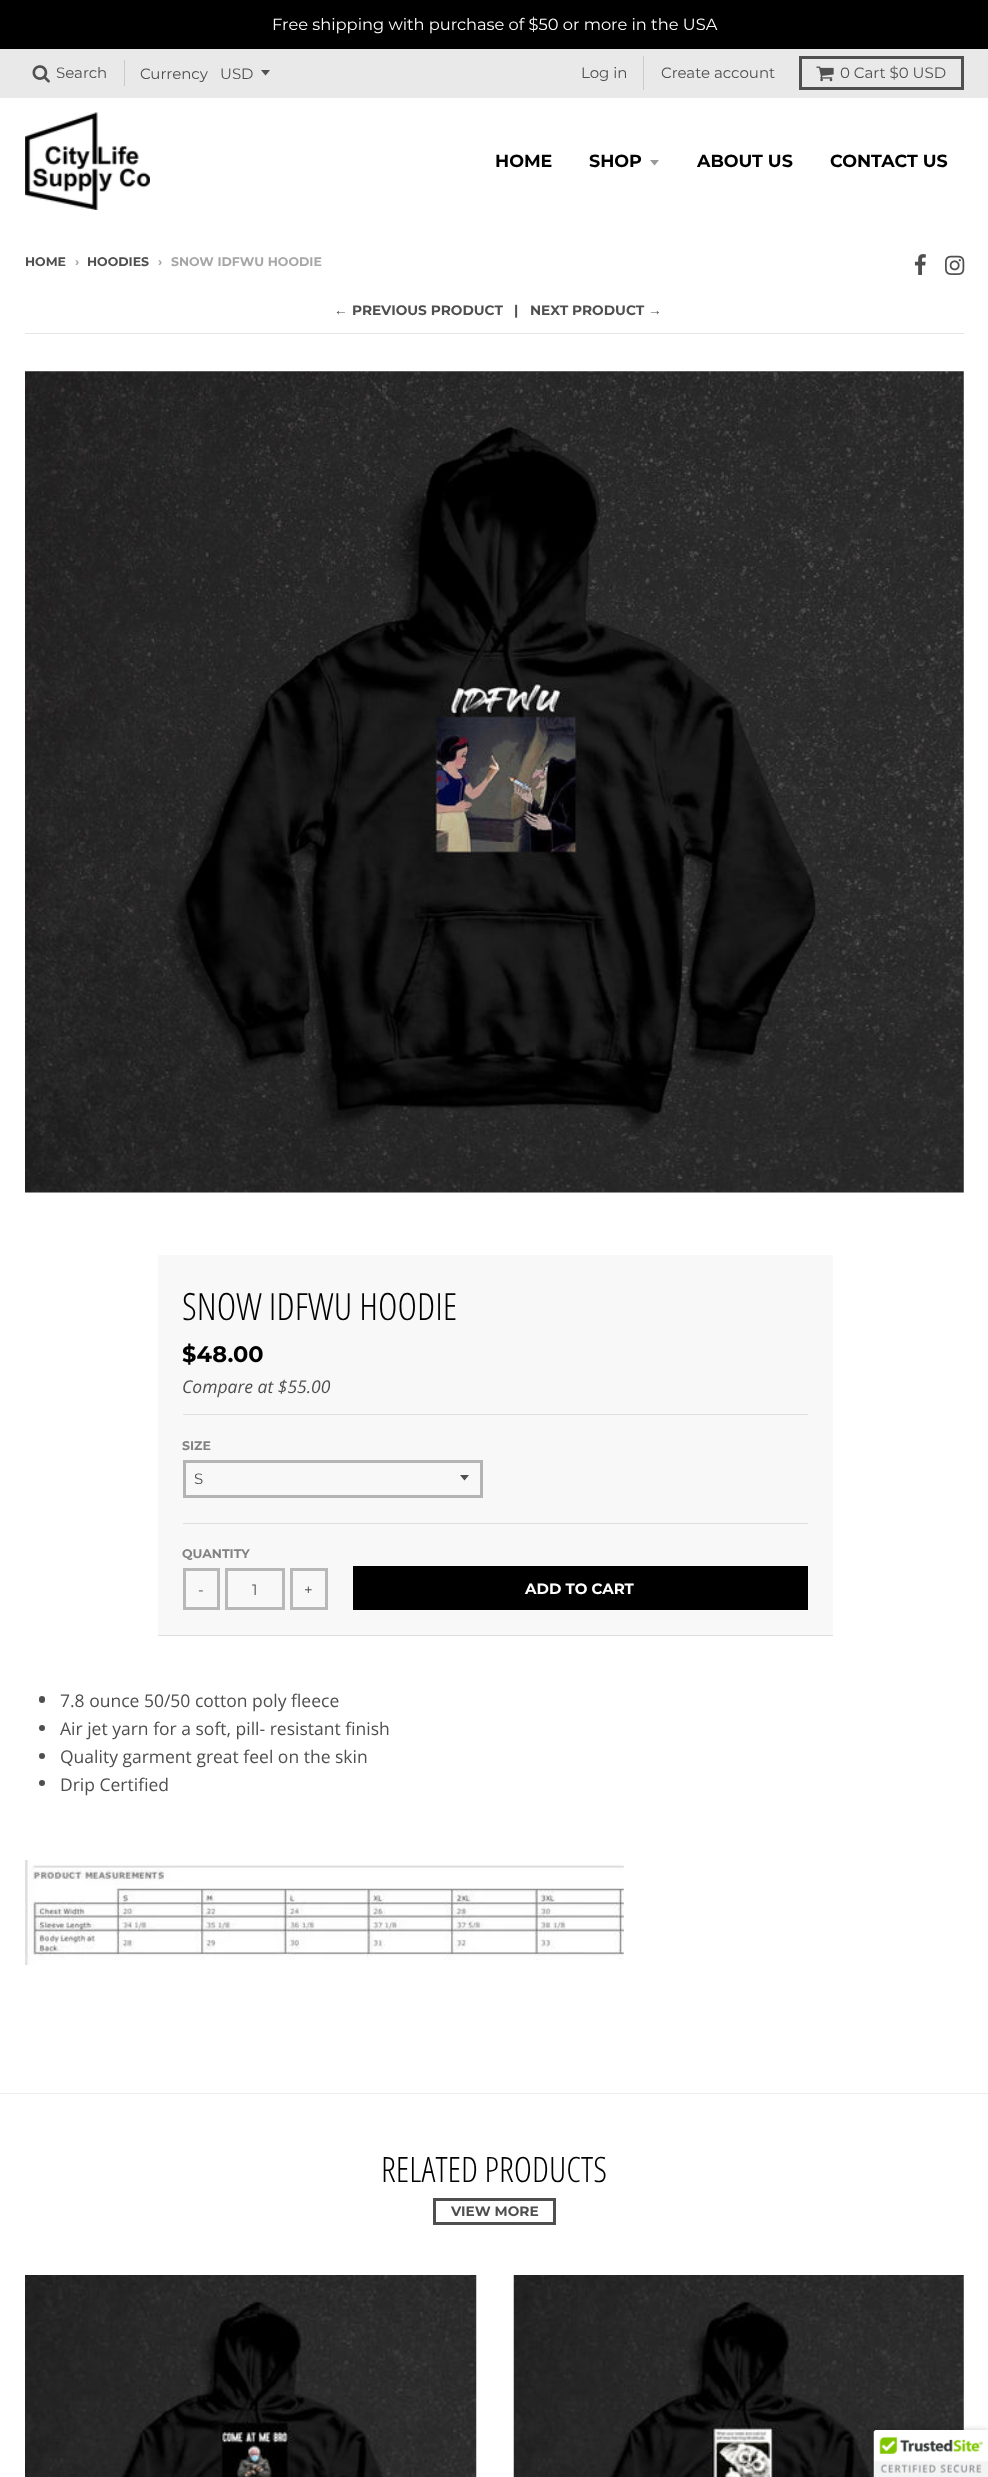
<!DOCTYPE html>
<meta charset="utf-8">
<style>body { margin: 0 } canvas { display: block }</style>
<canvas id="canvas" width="988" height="2477"></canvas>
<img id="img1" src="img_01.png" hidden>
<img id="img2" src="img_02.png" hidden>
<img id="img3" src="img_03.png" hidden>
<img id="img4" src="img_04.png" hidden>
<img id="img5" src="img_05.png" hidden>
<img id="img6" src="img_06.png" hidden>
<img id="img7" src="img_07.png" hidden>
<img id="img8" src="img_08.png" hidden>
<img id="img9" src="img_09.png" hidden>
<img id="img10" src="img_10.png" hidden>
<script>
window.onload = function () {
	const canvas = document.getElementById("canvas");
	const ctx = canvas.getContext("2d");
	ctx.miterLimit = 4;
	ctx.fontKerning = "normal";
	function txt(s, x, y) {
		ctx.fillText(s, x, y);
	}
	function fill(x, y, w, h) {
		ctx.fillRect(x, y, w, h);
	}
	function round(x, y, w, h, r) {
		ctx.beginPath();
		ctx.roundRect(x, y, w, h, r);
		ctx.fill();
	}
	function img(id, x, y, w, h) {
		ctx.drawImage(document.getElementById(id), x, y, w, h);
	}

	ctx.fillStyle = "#FFFFFF";
	fill(0, 0, 988, 2477);
	ctx.fillStyle = "#000000";
	fill(0, 0, 988, 49);
	ctx.fillStyle = "#E9E9E9";
	fill(0, 49, 988, 49);
	img("img1", 32, 65, 18, 18);
	ctx.fillStyle = "#CACACA";
	fill(124, 60, 1, 26);
	ctx.fillStyle = "#505050";
	ctx.beginPath();
	ctx.moveTo(261, 70);
	ctx.lineTo(265.5, 75.5);
	ctx.lineTo(270, 70);
	ctx.closePath();
	ctx.fill();
	ctx.fillStyle = "#CACACA";
	fill(643, 56, 1, 34);
	ctx.strokeStyle = "#505050";
	ctx.lineWidth = 3;
	ctx.strokeRect(800.5, 57.5, 162, 31);
	img("img2", 816, 66, 18, 16);
	img("img3", 25, 112, 125, 98);
	ctx.fillStyle = "#999999";
	ctx.beginPath();
	ctx.moveTo(650, 160);
	ctx.lineTo(654.5, 165.5);
	ctx.lineTo(659, 160);
	ctx.closePath();
	ctx.fill();
	ctx.fillStyle = "#EDEDED";
	fill(0, 2093, 988, 1);
	img("img4", 914, 254, 12, 21);
	img("img5", 945, 255, 20, 20);
	ctx.fillStyle = "#E5E5E5";
	fill(25, 333, 939, 1);
	ctx.fillStyle = "#F8F8F8";
	fill(25, 371, 939, 822);
	img("img6", 25, 371, 939, 822);
	fill(158, 1255, 675, 380);
	ctx.fillStyle = "#DFDFDF";
	fill(158, 1635, 675, 1);
	fill(183, 1414, 625, 1);
	fill(183, 1523, 625, 1);
	ctx.fillStyle = "#4F4F4F";
	ctx.beginPath();
	ctx.moveTo(460, 1475);
	ctx.lineTo(464.5, 1480.5);
	ctx.lineTo(469, 1475);
	ctx.closePath();
	ctx.fill();
	ctx.strokeStyle = "#B4B4B4";
	ctx.strokeRect(184.5, 1461.5, 297, 35);
	ctx.strokeStyle = "#B8B8B8";
	ctx.strokeRect(184.5, 1569.5, 34, 39);
	ctx.strokeRect(226.5, 1569.5, 57, 39);
	ctx.strokeRect(291.5, 1569.5, 35, 39);
	ctx.fillStyle = "#000000";
	fill(353, 1566, 455, 44);
	ctx.fillStyle = "#4F4F4F";
	round(39, 1696, 6, 7, 3);
	ctx.beginPath();
	ctx.arc(42, 1728, 3, 0, Math.PI * 2);
	ctx.fill();
	ctx.beginPath();
	ctx.arc(42, 1756, 3, 0, Math.PI * 2);
	ctx.fill();
	ctx.beginPath();
	ctx.arc(42, 1783, 3, 0, Math.PI * 2);
	ctx.fill();
	img("img7", 25, 1860, 599, 105);
	ctx.strokeStyle = "#4F4F4F";
	ctx.strokeRect(434.5, 2199.5, 120, 24);
	img("img8", 25, 2275, 452, 202);
	img("img9", 513, 2275, 451, 202);
	ctx.fillStyle = "rgba(0, 0, 0, 0.2)";
	ctx.filter = "blur(3px)";
	ctx.beginPath();
	ctx.roundRect(874, 2430, 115, 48, 2.5);
	ctx.fill();
	ctx.filter = "none";
	ctx.fillStyle = "#FFFFFF";
	ctx.beginPath();
	ctx.moveTo(876.5, 2430);
	ctx.lineTo(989, 2430);
	ctx.lineTo(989, 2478);
	ctx.lineTo(874, 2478);
	ctx.lineTo(874, 2432.5);
	ctx.bezierCurveTo(874, 2431, 875, 2430, 876.5, 2430);
	ctx.closePath();
	ctx.fill();
	img("img10", 873, 2430, 115, 47);
	ctx.font = "16.25px Montserrat";
	txt("Free shipping with purchase of $50 or more in the USA", 272, 30);
	ctx.font = "15px Montserrat";
	ctx.fillStyle = "#4F4F4F";
	txt("Search", 56, 78);
	txt("Currency", 140, 79);
	txt("USD", 220, 79);
	txt("Log in", 581, 78);
	txt("Create account", 661, 78);
	txt("0 Cart $0 USD", 840, 78);
	ctx.font = "bold 17.5px Montserrat";
	ctx.fillStyle = "#000000";
	txt("HOME", 495, 167);
	txt("SHOP", 589, 167);
	txt("ABOUT US", 697, 167);
	txt("CONTACT US", 830, 167);
	ctx.font = "bold 12.5px Montserrat";
	ctx.fillStyle = "#4F4F4F";
	txt("HOME", 25, 266);
	ctx.fillStyle = "#A7A7A7";
	txt("›", 75, 266);
	ctx.fillStyle = "#4F4F4F";
	txt("HOODIES", 87, 266);
	ctx.fillStyle = "#A7A7A7";
	txt("›", 158, 266);
	txt("SNOW IDFWU HOODIE", 171, 266);
	ctx.font = "bold 13.75px Liberation Sans";
	ctx.fillStyle = "#4F4F4F";
	txt("←", 334, 315);
	ctx.font = "bold 13.75px Montserrat";
	txt("PREVIOUS PRODUCT", 352, 315);
	txt("|", 514, 315);
	txt("NEXT PRODUCT", 530, 315);
	ctx.font = "bold 13.75px Liberation Sans";
	txt("→", 648, 315);
	ctx.font = "300 37.5px Open Sans Condensed";
	ctx.fillStyle = "#000000";
	txt("SNOW IDFWU HOODIE", 182, 1320);
	ctx.font = "bold 22.5px Montserrat";
	txt("$48.00", 182, 1362);
	ctx.font = "italic 17.5px Open Sans";
	ctx.fillStyle = "#4F4F4F";
	txt("Compare at $55.00", 182, 1393);
	ctx.font = "bold 12.5px Montserrat";
	ctx.fillStyle = "#838383";
	txt("SIZE", 182, 1450);
	ctx.font = "15px Montserrat";
	ctx.fillStyle = "#4F4F4F";
	txt("S", 194, 1484);
	ctx.font = "bold 12.5px Montserrat";
	ctx.fillStyle = "#838383";
	txt("QUANTITY", 182, 1558);
	ctx.font = "15px Montserrat";
	ctx.fillStyle = "#4F4F4F";
	txt("-", 198, 1595);
	txt("1", 252, 1595);
	txt("+", 304, 1595);
	ctx.font = "bold 15px Montserrat";
	ctx.fillStyle = "#FFFFFF";
	txt("ADD TO CART", 525, 1594);
	ctx.font = "17.5px Open Sans";
	ctx.fillStyle = "#4F4F4F";
	txt("7.8 ounce 50/50 cotton poly fleece", 60, 1707);
	txt("Air jet yarn for a soft, pill- resistant finish", 60, 1735);
	txt("Quality garment great feel on the skin", 60, 1763);
	txt("Drip Certified", 60, 1791);
	ctx.font = "300 35px Open Sans Condensed";
	ctx.fillStyle = "#000000";
	txt("RELATED PRODUCTS", 381, 2182);
	ctx.font = "bold 13.75px Montserrat";
	ctx.fillStyle = "#4F4F4F";
	txt("VIEW MORE", 451, 2216);
};
</script>
